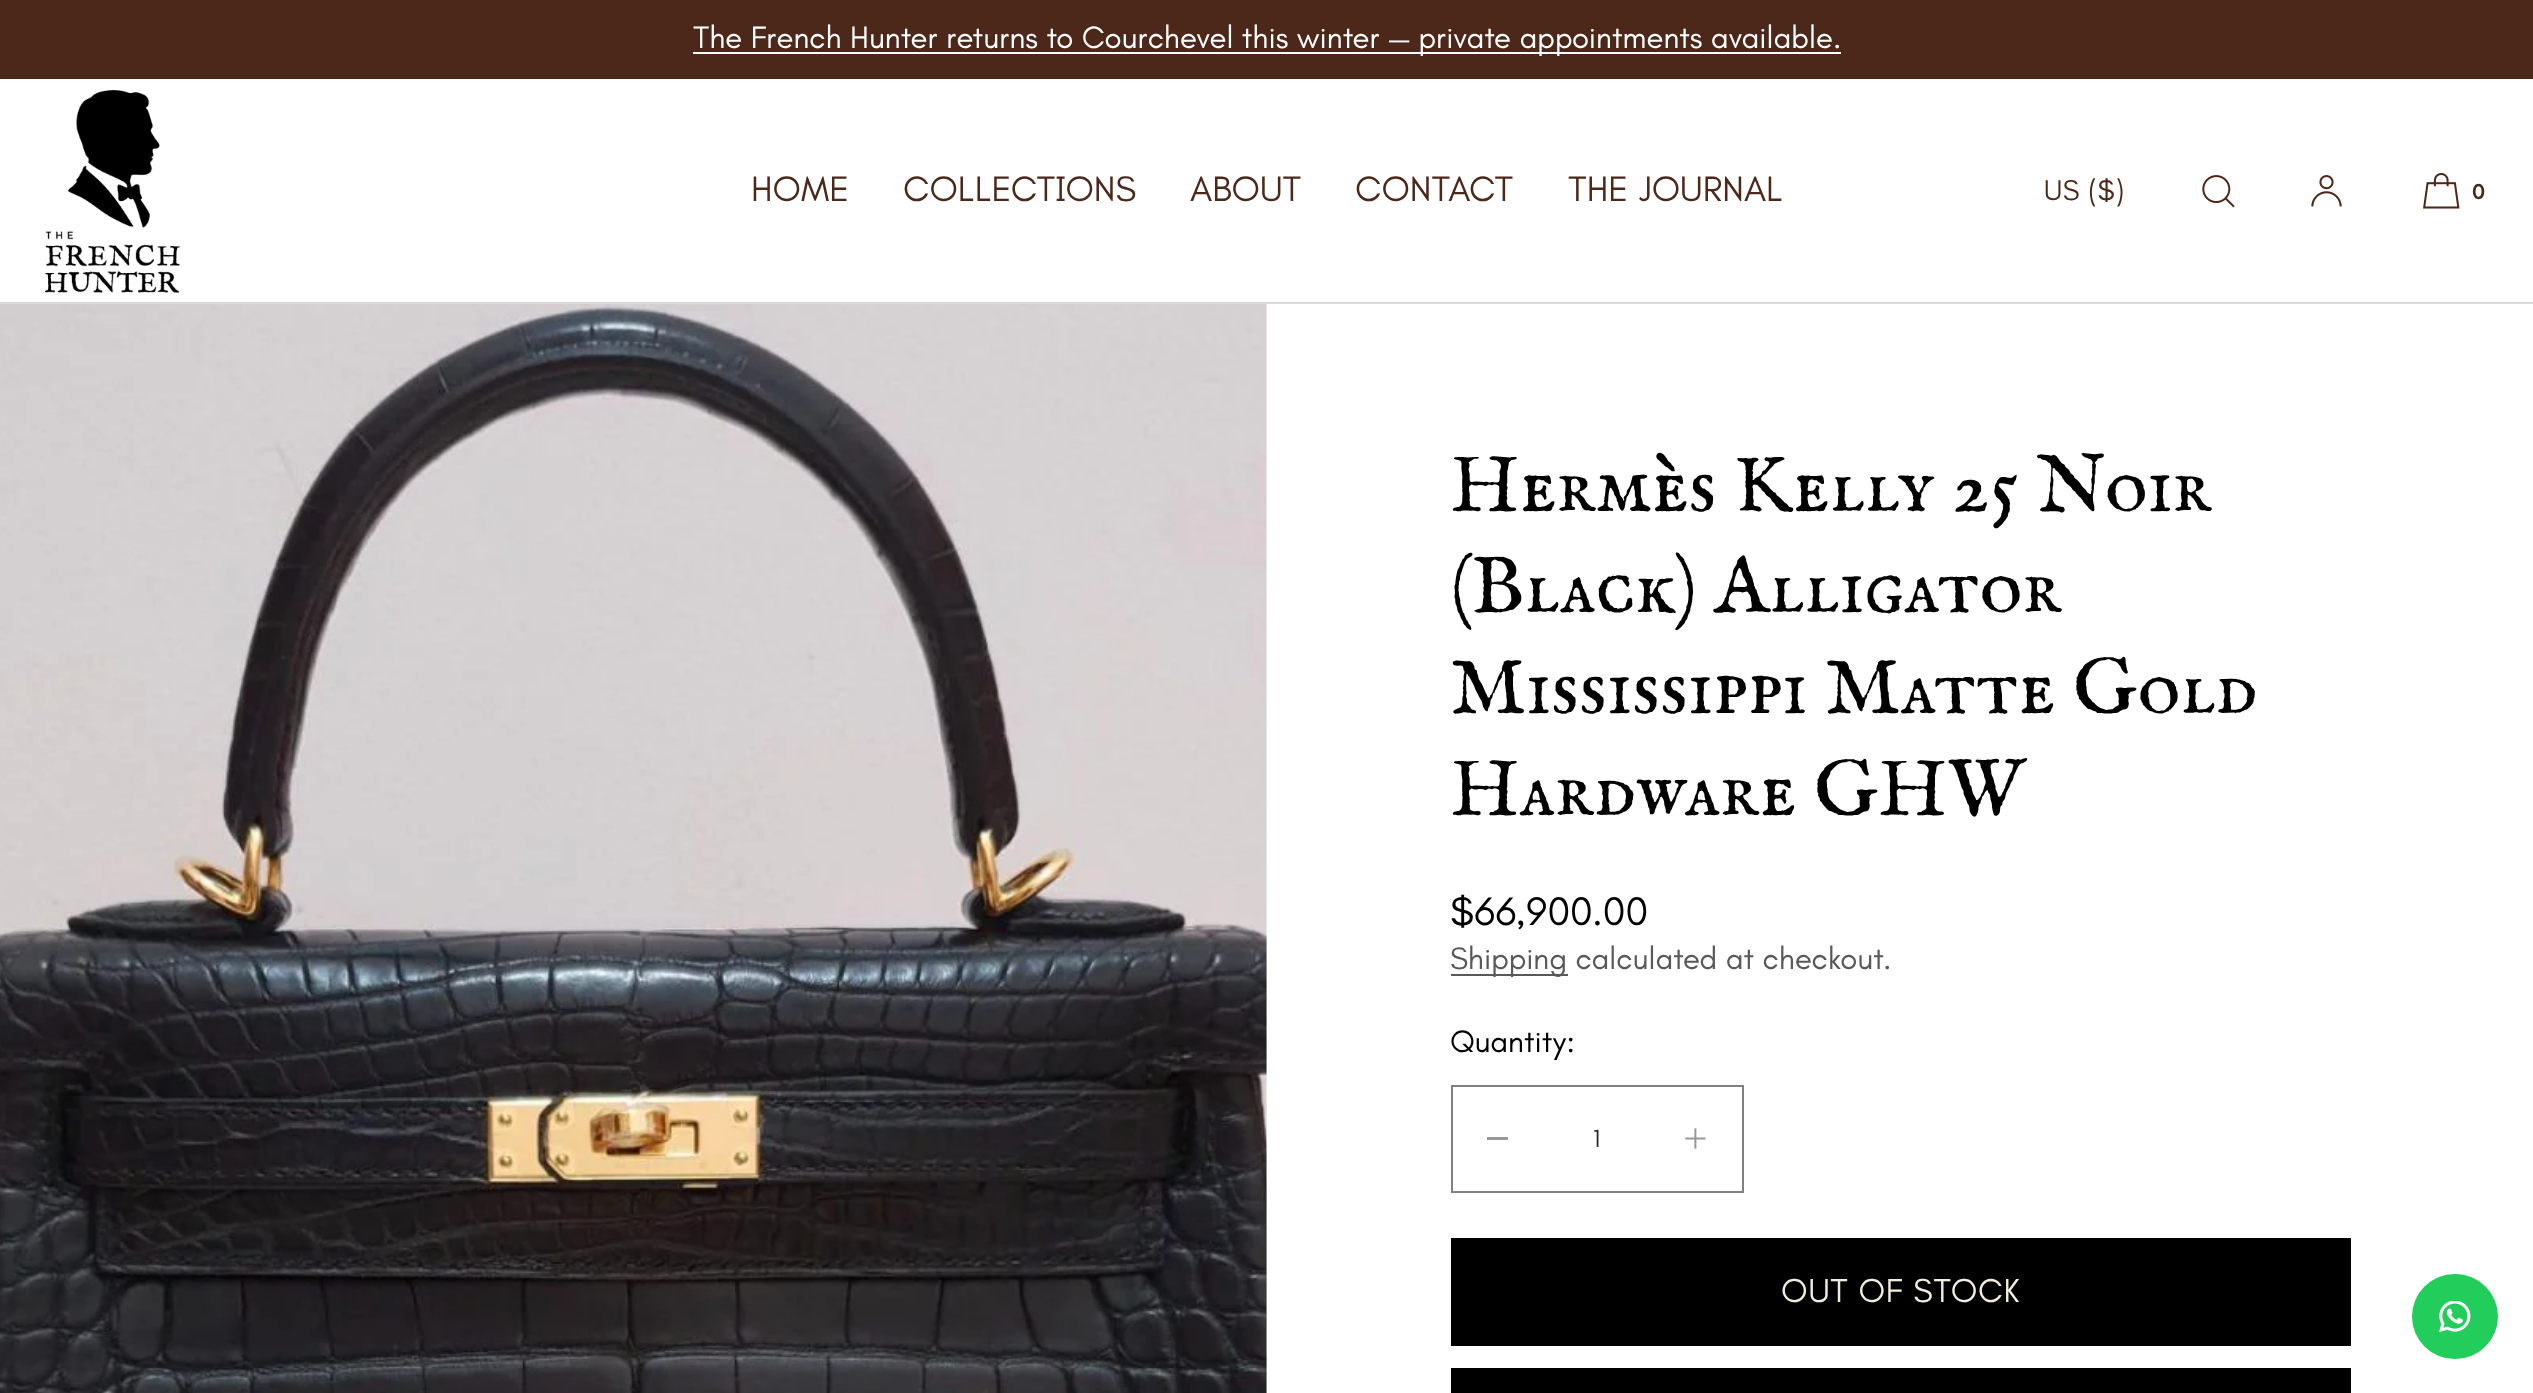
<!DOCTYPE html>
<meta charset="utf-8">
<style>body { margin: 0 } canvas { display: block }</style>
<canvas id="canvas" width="2533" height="1393"></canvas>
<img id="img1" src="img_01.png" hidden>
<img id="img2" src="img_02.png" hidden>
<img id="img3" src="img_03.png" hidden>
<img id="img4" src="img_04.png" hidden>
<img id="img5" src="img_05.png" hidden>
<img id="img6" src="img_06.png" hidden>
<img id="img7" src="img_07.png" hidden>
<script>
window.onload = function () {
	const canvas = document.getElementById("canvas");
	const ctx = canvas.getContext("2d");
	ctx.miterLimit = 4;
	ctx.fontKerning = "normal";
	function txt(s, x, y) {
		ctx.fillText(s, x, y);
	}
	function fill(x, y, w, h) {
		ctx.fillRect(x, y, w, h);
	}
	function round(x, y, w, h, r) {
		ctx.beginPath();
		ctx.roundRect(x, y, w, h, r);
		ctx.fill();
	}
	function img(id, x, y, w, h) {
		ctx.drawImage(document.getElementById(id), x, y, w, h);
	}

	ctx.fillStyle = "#FFFFFF";
	fill(0, 0, 2533, 1393);
	ctx.fillStyle = "#4C281A";
	fill(0, 0, 2533, 79);
	ctx.fillStyle = "#FFFFFF";
	fill(693, 52, 1148, 2);
	ctx.fillStyle = "#D9D9D9";
	fill(0, 302, 2533, 2);
	img("img1", 45, 90, 135, 203);
	img("img2", 2202, 175, 33, 33);
	img("img3", 2311, 175, 31, 32);
	img("img4", 2423, 173, 37, 36);
	img("img5", 0, 304, 1267, 1089);
	ctx.fillStyle = "#595959";
	fill(1451, 974, 117, 2);
	ctx.strokeStyle = "#808080";
	ctx.lineWidth = 2;
	ctx.strokeRect(1452, 1086, 291, 106);
	ctx.fillStyle = "#999999";
	fill(1487, 1137, 21, 3);
	img("img6", 1685, 1128, 21, 21);
	ctx.fillStyle = "#000000";
	fill(1451, 1238, 900, 108);
	fill(1451, 1368, 900, 25);
	ctx.fillStyle = "#22CD5B";
	round(2412, 1274, 86, 85, 42.5);
	img("img7", 2439, 1301, 32, 31);
	ctx.font = "31.5px Teachers";
	ctx.fillStyle = "#FFFFFF";
	txt("The French Hunter returns to Courchevel this winter — private appointments available.", 693, 48);
	ctx.font = "36px Teachers";
	ctx.fillStyle = "#4C281A";
	txt("HOME", 751, 201);
	txt("COLLECTIONS", 903, 201);
	txt("ABOUT", 1190, 201);
	txt("CONTACT", 1355, 201);
	txt("THE JOURNAL", 1568, 201);
	ctx.letterSpacing = "0.5px";
	ctx.font = "29px Teachers";
	txt("US ($)", 2044, 200);
	ctx.letterSpacing = "1px";
	ctx.font = "600 22px Teachers";
	txt("0", 2472, 199);
	ctx.letterSpacing = "0px";
	ctx.font = "81px IM FELL English SC";
	ctx.fillStyle = "#000000";
	txt("Hermès Kelly 25 Noir", 1450, 511);
	txt("(Black) Alligator", 1450, 612);
	txt("Mississippi Matte Gold", 1450, 713);
	txt("Hardware GHW", 1450, 815);
	ctx.font = "40.5px Teachers";
	txt("$66,900.00", 1450, 925);
	ctx.font = "31.5px Teachers";
	ctx.fillStyle = "#595959";
	txt("Shipping calculated at checkout.", 1450, 969);
	ctx.fillStyle = "#000000";
	txt("Quantity:", 1450, 1052);
	ctx.font = "25px Teachers";
	ctx.fillStyle = "#262626";
	txt("1", 1593, 1147);
	ctx.letterSpacing = "0.75px";
	ctx.font = "33.75px Teachers";
	ctx.fillStyle = "#F3EDE0";
	txt("OUT OF STOCK", 1781, 1302);
};
</script>
